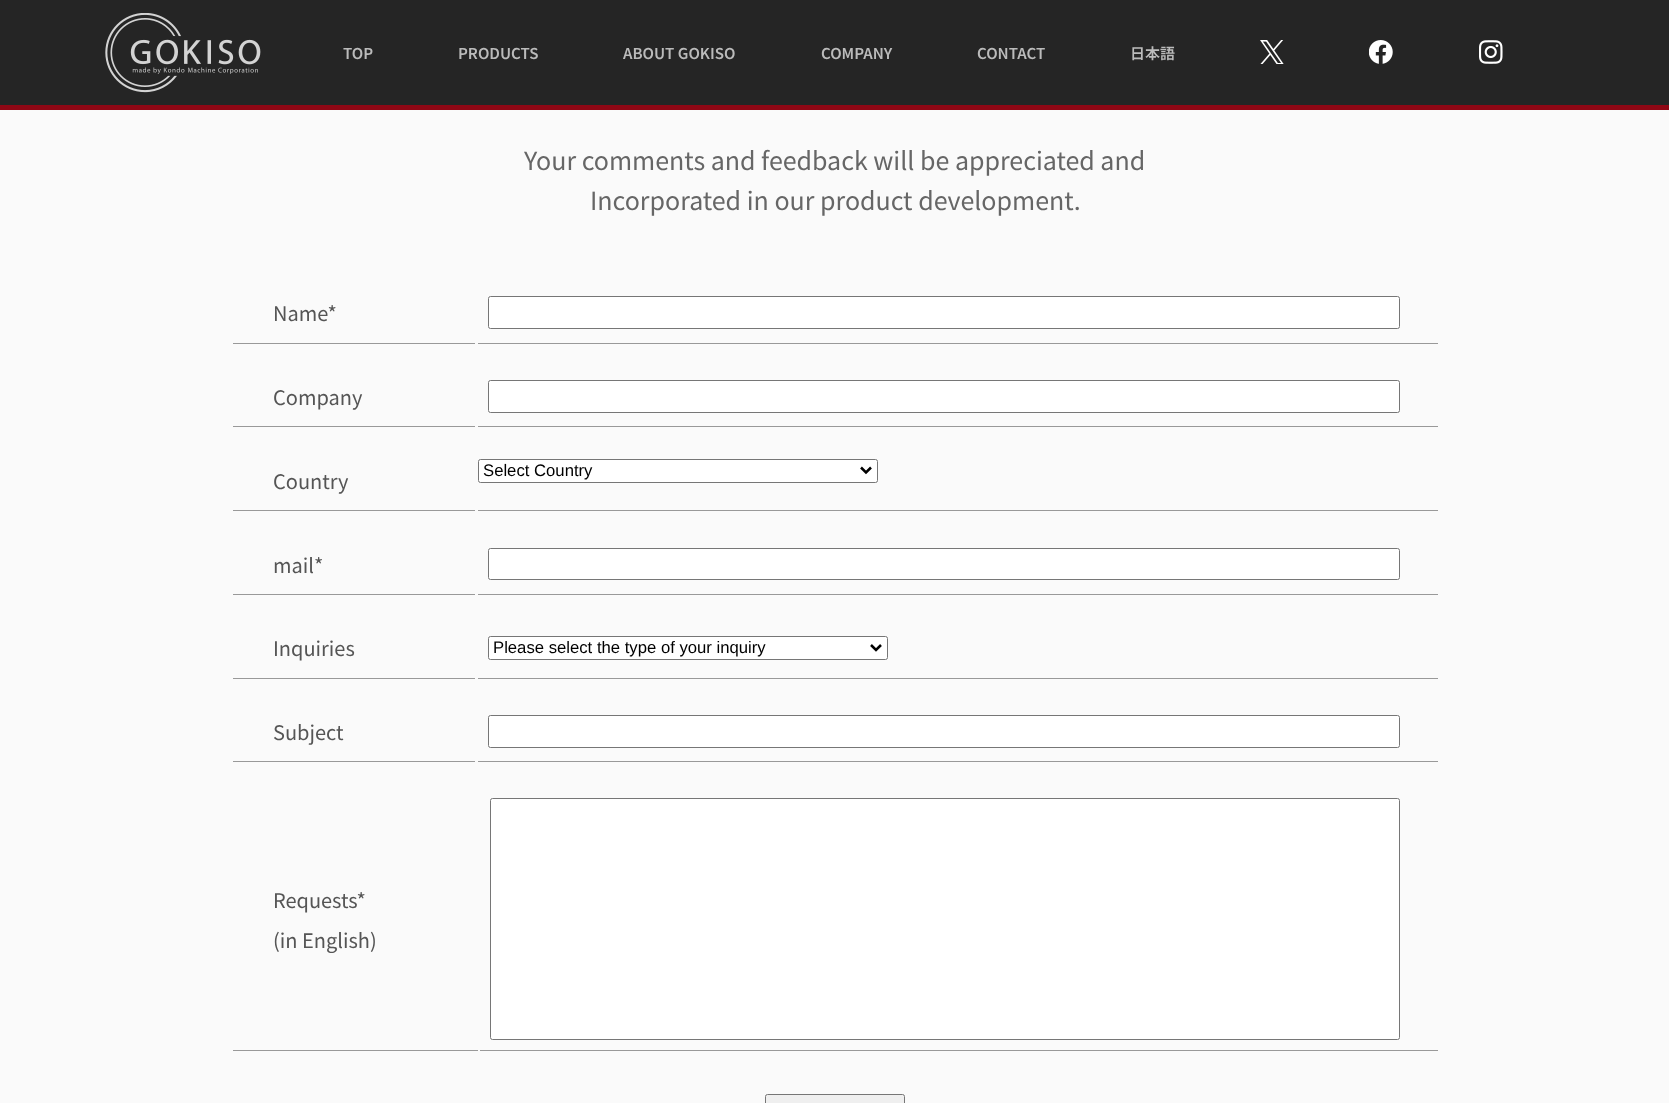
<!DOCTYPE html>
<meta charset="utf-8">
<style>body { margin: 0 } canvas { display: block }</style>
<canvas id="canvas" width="1669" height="1103"></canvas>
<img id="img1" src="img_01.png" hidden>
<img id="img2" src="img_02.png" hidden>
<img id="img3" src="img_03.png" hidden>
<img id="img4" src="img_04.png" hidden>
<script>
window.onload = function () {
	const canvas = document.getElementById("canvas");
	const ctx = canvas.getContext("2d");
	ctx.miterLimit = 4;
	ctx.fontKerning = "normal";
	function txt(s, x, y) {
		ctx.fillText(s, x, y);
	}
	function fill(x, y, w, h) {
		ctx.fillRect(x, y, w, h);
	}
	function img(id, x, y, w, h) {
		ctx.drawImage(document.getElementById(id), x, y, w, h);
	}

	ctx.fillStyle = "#FAFAFA";
	fill(0, 0, 1669, 1103);
	ctx.fillStyle = "#252525";
	fill(0, 0, 1669, 105);
	ctx.fillStyle = "#8F0715";
	fill(0, 105, 1669, 5);
	img("img1", 105, 13, 156, 80);
	img("img2", 1260, 40, 24, 24);
	img("img3", 1369, 40, 24, 24);
	img("img4", 1479, 40, 24, 24);
	ctx.fillStyle = "#999999";
	fill(233, 343, 242, 1);
	fill(478, 343, 960, 1);
	ctx.fillStyle = "#FFFFFF";
	ctx.beginPath();
	ctx.roundRect(488.5, 296.5, 911, 32, 2);
	ctx.fill();
	ctx.strokeStyle = "#767676";
	ctx.stroke();
	ctx.fillStyle = "#999999";
	fill(233, 426, 242, 1);
	fill(478, 426, 960, 1);
	ctx.fillStyle = "#FFFFFF";
	ctx.beginPath();
	ctx.roundRect(488.5, 380.5, 911, 32, 2);
	ctx.fill();
	ctx.stroke();
	ctx.fillStyle = "#999999";
	fill(478, 510, 960, 1);
	ctx.fillStyle = "#FFFFFF";
	ctx.beginPath();
	ctx.roundRect(478.5, 459.5, 399, 23, 2);
	ctx.fill();
	ctx.stroke();
	ctx.beginPath();
	ctx.moveTo(861, 467.5);
	ctx.lineTo(866, 472.5);
	ctx.lineTo(871, 467.5);
	ctx.strokeStyle = "#000000";
	ctx.lineWidth = 2.5;
	ctx.stroke();
	ctx.fillStyle = "#999999";
	fill(233, 510, 242, 1);
	fill(233, 594, 242, 1);
	fill(478, 594, 960, 1);
	ctx.fillStyle = "#FFFFFF";
	ctx.beginPath();
	ctx.roundRect(488.5, 548.5, 911, 31, 2);
	ctx.fill();
	ctx.strokeStyle = "#767676";
	ctx.lineWidth = 1;
	ctx.stroke();
	ctx.fillStyle = "#999999";
	fill(233, 678, 242, 1);
	fill(478, 678, 960, 1);
	ctx.fillStyle = "#FFFFFF";
	ctx.beginPath();
	ctx.roundRect(488.5, 636.5, 399, 23, 2);
	ctx.fill();
	ctx.stroke();
	ctx.beginPath();
	ctx.moveTo(871, 645);
	ctx.lineTo(876, 650);
	ctx.lineTo(881, 645);
	ctx.strokeStyle = "#000000";
	ctx.lineWidth = 2.5;
	ctx.stroke();
	ctx.fillStyle = "#999999";
	fill(233, 761, 242, 1);
	fill(478, 761, 960, 1);
	ctx.fillStyle = "#FFFFFF";
	ctx.beginPath();
	ctx.roundRect(488.5, 715.5, 911, 32, 2);
	ctx.fill();
	ctx.strokeStyle = "#767676";
	ctx.lineWidth = 1;
	ctx.stroke();
	ctx.fillStyle = "#999999";
	fill(233, 1050, 245, 1);
	fill(480, 1050, 958, 1);
	ctx.fillStyle = "#FFFFFF";
	ctx.beginPath();
	ctx.roundRect(490.5, 798.5, 909, 241, 2);
	ctx.fill();
	ctx.stroke();
	ctx.fillStyle = "#EFEFEF";
	ctx.beginPath();
	ctx.roundRect(765.5, 1094.5, 139, 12, 2);
	ctx.fill();
	ctx.stroke();
	ctx.font = "600 15px Noto Sans JP";
	ctx.fillStyle = "#BBBBBB";
	txt("TOP", 343, 59);
	txt("PRODUCTS", 458, 59);
	txt("ABOUT GOKISO", 623, 59);
	txt("COMPANY", 821, 59);
	txt("CONTACT", 977, 59);
	txt("日本語", 1130, 59);
	ctx.font = "25px Noto Sans JP";
	ctx.fillStyle = "#666666";
	txt("Your comments and feedback will be appreciated and", 524, 170);
	txt("Incorporated in our product development.", 590, 210);
	ctx.font = "20px Noto Sans JP";
	ctx.fillStyle = "#555555";
	txt("Name*", 273, 321);
	txt("Company", 273, 405);
	ctx.font = "16.7px Liberation Sans";
	ctx.fillStyle = "#000000";
	txt("Select Country", 483, 476);
	ctx.font = "20px Noto Sans JP";
	ctx.fillStyle = "#555555";
	txt("Country", 273, 489);
	txt("mail*", 273, 573);
	txt("Inquiries", 273, 656);
	ctx.font = "16.7px Liberation Sans";
	ctx.fillStyle = "#000000";
	txt("Please select the type of your inquiry", 493, 653);
	ctx.font = "20px Noto Sans JP";
	ctx.fillStyle = "#555555";
	txt("Subject", 273, 740);
	txt("Requests*", 273, 908);
	txt("(in English)", 273, 948);
};
</script>
